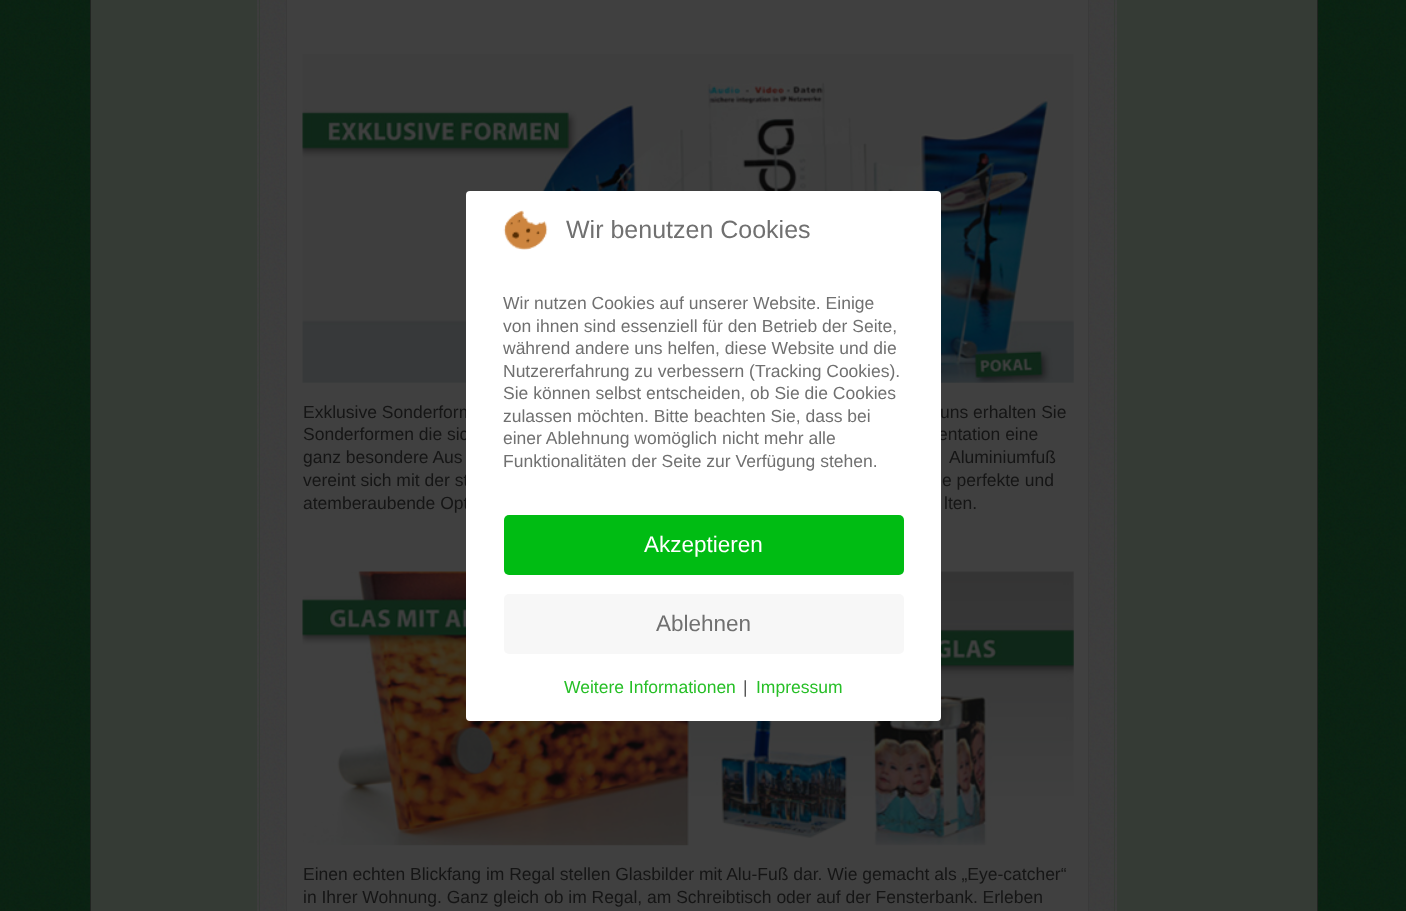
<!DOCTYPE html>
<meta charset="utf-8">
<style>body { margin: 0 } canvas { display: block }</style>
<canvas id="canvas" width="1406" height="911"></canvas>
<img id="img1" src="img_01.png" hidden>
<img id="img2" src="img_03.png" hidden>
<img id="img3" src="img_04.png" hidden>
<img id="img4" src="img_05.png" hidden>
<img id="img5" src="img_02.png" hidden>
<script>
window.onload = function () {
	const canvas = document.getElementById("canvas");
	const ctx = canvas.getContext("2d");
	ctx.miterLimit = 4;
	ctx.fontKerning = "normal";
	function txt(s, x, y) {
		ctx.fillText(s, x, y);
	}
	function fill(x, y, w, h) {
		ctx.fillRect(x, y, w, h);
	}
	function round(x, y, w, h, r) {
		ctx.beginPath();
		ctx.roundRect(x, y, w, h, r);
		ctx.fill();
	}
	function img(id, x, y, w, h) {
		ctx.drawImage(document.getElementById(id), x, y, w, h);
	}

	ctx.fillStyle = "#06200F";
	fill(0, 0, 1406, 911);
	img("img1", 0, 0, 1406, 911);
	ctx.fillStyle = "#353B35";
	ctx.beginPath();
	ctx.rect(90.5, -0.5, 1227, 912);
	ctx.fill();
	ctx.strokeStyle = "#212421";
	ctx.stroke();
	ctx.fillStyle = "#3E3E3E";
	fill(257, 0, 860, 911);
	img("img2", 257, 0, 860, 911);
	ctx.strokeStyle = "#353B35";
	ctx.strokeRect(259.5, -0.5, 855, 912);
	ctx.fillStyle = "#404040";
	ctx.beginPath();
	ctx.rect(286.5, -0.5, 802, 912);
	ctx.fill();
	ctx.strokeStyle = "#3A3A3A";
	ctx.stroke();
	img("img3", 302, 54, 772, 329);
	img("img4", 302, 571, 772, 275);
	ctx.font = "17.5px Liberation Sans";
	ctx.fillStyle = "#151515";
	txt("Exklusive Sonderform", 303, 418);
	txt("uns erhalten Sie", 940, 418);
	txt("Sonderformen die sic", 303, 440);
	txt("entation eine", 938, 440);
	txt("ganz besondere Aus", 303, 463);
	txt("Aluminiumfuß", 949, 463);
	txt("vereint sich mit der st", 303, 486);
	txt("e perfekte und", 942, 486);
	txt("atemberaubende Opt", 303, 509);
	ctx.fillStyle = "#FFFFFF";
	round(466, 191, 475, 530, 4);
	img("img5", 503, 210, 45, 40);
	ctx.font = "25px Liberation Sans";
	ctx.fillStyle = "#707070";
	txt("Wir benutzen Cookies", 566, 238);
	ctx.font = "17.5px Liberation Sans";
	ctx.fillStyle = "#26BF26";
	txt("Impressum", 756, 693);
	ctx.fillStyle = "#555555";
	txt("|", 743, 693);
	ctx.fillStyle = "#26BF26";
	txt("Weitere Informationen", 564, 693);
	ctx.fillStyle = "#F7F7F7";
	round(504, 594, 400, 60, 5);
	ctx.font = "22.5px Liberation Sans";
	ctx.fillStyle = "#707070";
	txt("Ablehnen", 656, 631);
	ctx.fillStyle = "#00BC13";
	round(504, 515, 400, 60, 5);
	ctx.fillStyle = "#FFFFFF";
	txt("Akzeptieren", 644, 552);
	ctx.font = "17.5px Liberation Sans";
	ctx.fillStyle = "#707070";
	txt("Funktionalitäten der Seite zur Verfügung stehen.", 503, 467);
	txt("einer Ablehnung womöglich nicht mehr alle", 503, 444);
	txt("zulassen möchten. Bitte beachten Sie, dass bei", 503, 422);
	txt("Sie können selbst entscheiden, ob Sie die Cookies", 503, 399);
	txt("Nutzererfahrung zu verbessern (Tracking Cookies).", 503, 377);
	txt("während andere uns helfen, diese Website und die", 503, 354);
	txt("von ihnen sind essenziell für den Betrieb der Seite,", 503, 332);
	txt("Wir nutzen Cookies auf unserer Website. Einige", 503, 309);
	ctx.fillStyle = "#151515";
	txt("lten.", 944, 509);
	txt("Einen echten Blickfang im Regal stellen Glasbilder mit Alu-Fuß dar. Wie gemacht als „Eye-catcher“", 303, 880);
	txt("in Ihrer Wohnung. Ganz gleich ob im Regal, am Schreibtisch oder auf der Fensterbank. Erleben", 303, 903);
};
</script>
